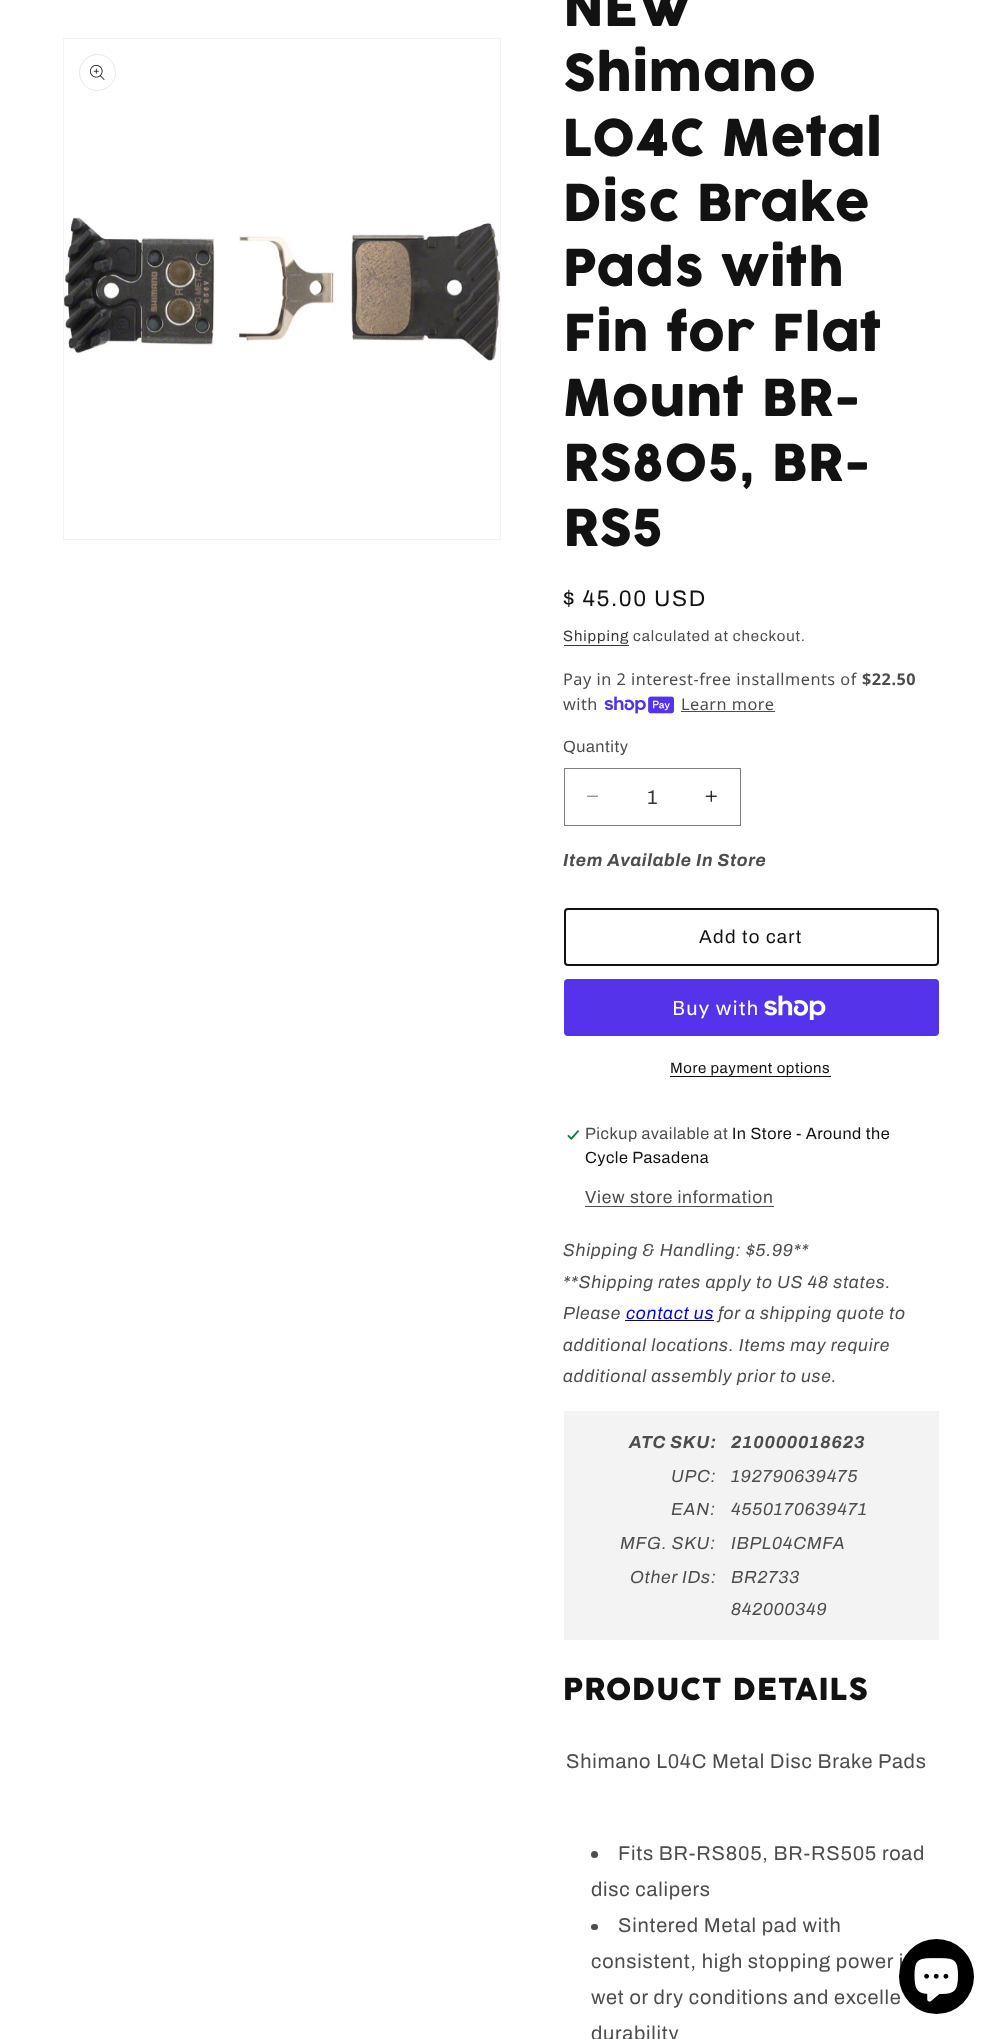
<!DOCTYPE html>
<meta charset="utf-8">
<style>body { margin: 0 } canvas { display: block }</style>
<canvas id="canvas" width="1001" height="2039"></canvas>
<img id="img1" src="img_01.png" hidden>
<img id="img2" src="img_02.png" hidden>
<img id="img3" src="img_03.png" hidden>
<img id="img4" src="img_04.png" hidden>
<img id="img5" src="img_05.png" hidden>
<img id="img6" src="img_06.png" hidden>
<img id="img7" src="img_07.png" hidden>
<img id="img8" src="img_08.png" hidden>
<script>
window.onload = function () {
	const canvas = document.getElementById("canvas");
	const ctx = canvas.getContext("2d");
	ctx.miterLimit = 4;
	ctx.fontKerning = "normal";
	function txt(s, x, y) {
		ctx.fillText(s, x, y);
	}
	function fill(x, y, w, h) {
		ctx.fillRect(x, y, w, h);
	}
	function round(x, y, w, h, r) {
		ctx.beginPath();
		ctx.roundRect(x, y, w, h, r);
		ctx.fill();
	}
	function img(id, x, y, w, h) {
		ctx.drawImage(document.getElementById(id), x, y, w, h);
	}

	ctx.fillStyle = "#FFFFFF";
	fill(0, 0, 1001, 2039);
	ctx.strokeStyle = "#F3F3F3";
	ctx.strokeRect(63.5, 38.5, 437, 501);
	ctx.beginPath();
	ctx.arc(97.5, 72.5, 18, 0, Math.PI * 2);
	ctx.strokeStyle = "#E7E7E7";
	ctx.stroke();
	img("img1", 90, 65, 15, 15);
	img("img2", 64, 217, 436, 144);
	ctx.fillStyle = "#363636";
	fill(564, 645, 65, 1);
	img("img3", 604, 696, 70, 18);
	ctx.fillStyle = "#4D4D4D";
	fill(681, 711, 94, 1);
	img("img4", 587, 795, 11, 2);
	img("img5", 705, 790, 12, 12);
	ctx.strokeStyle = "#7D7D7D";
	ctx.strokeRect(564.5, 768.5, 176, 57);
	ctx.beginPath();
	ctx.roundRect(565, 909, 373, 56, 3);
	ctx.strokeStyle = "#121212";
	ctx.lineWidth = 2;
	ctx.stroke();
	ctx.fillStyle = "#5433EB";
	round(564, 979, 375, 57, 4);
	img("img6", 764, 995, 62, 25);
	ctx.fillStyle = "#121212";
	fill(670, 1076, 161, 1);
	img("img7", 567, 1129, 13, 12);
	ctx.fillStyle = "#4D4D4D";
	fill(585, 1206, 189, 1);
	ctx.fillStyle = "#0E0E49";
	fill(625, 1320, 89, 1);
	ctx.fillStyle = "#F3F3F3";
	fill(564, 1411, 375, 229);
	ctx.fillStyle = "#4D4D4D";
	ctx.beginPath();
	ctx.arc(594.5, 1854.5, 3.5, 0, Math.PI * 2);
	ctx.fill();
	round(591, 1924, 7, 6, 3);
	ctx.letterSpacing = "0.75px";
	ctx.font = "50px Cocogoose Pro";
	ctx.fillStyle = "#121212";
	txt("NEW", 563, 26);
	txt("Shimano", 563, 91);
	txt("L04C Metal", 563, 156);
	txt("Disc Brake", 563, 221);
	txt("Pads with", 563, 286);
	txt("Fin for Flat", 563, 351);
	txt("Mount BR-", 563, 416);
	txt("RS805, BR-", 563, 481);
	txt("RS5", 563, 546);
	ctx.letterSpacing = "1.6px";
	ctx.font = "22.5px Archivo";
	txt("$ 45.00 USD", 563, 606);
	ctx.letterSpacing = "0.9px";
	ctx.font = "15px Archivo";
	ctx.fillStyle = "#363636";
	txt("Shipping", 563, 641);
	ctx.fillStyle = "#4D4D4D";
	txt("calculated at checkout.", 633, 641);
	ctx.letterSpacing = "0.5px";
	ctx.font = "16.25px Noto Sans";
	txt("Pay in 2 interest-free installments of", 563, 685);
	ctx.font = "bold 16.25px Noto Sans";
	txt("$22.50", 862, 685);
	ctx.font = "16.25px Noto Sans";
	txt("with", 563, 710);
	txt("Learn more", 681, 710);
	ctx.font = "16.25px Archivo";
	txt("Quantity", 563, 752);
	ctx.letterSpacing = "0px";
	ctx.font = "20px Archivo";
	ctx.fillStyle = "#363636";
	txt("1", 647, 804);
	ctx.letterSpacing = "0.75px";
	ctx.font = "italic bold 17.5px Archivo";
	ctx.fillStyle = "#4D4D4D";
	txt("Item Available In Store", 563, 866);
	ctx.letterSpacing = "1.25px";
	ctx.font = "18.75px Archivo";
	ctx.fillStyle = "#121212";
	txt("Add to cart", 699, 943);
	ctx.letterSpacing = "0.75px";
	ctx.font = "20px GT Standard";
	ctx.fillStyle = "#FFFFFF";
	txt("Buy with", 672, 1015);
	ctx.letterSpacing = "0.6px";
	ctx.font = "15px Archivo";
	ctx.fillStyle = "#121212";
	txt("More payment options", 670, 1073);
	ctx.letterSpacing = "0.5px";
	ctx.font = "16.25px Archivo";
	ctx.fillStyle = "#4D4D4D";
	txt("Pickup available at", 585, 1139);
	ctx.fillStyle = "#121212";
	txt("In Store - Around the", 732, 1139);
	txt("Cycle Pasadena", 585, 1163);
	ctx.letterSpacing = "0.75px";
	ctx.font = "17.5px Archivo";
	ctx.fillStyle = "#4D4D4D";
	txt("View store information", 585, 1203);
	ctx.font = "italic 17.5px Archivo";
	txt("Shipping & Handling: $5.99**", 563, 1256);
	txt("**Shipping rates apply to US 48 states.", 563, 1288);
	txt("Please", 563, 1319);
	ctx.fillStyle = "#0000EE";
	txt("contact us", 626, 1319);
	ctx.fillStyle = "#4D4D4D";
	txt("for a shipping quote to", 718, 1319);
	txt("additional locations. Items may require", 563, 1351);
	txt("additional assembly prior to use.", 563, 1382);
	ctx.font = "italic bold 17.5px Archivo";
	txt("ATC SKU:", 629, 1448);
	txt("210000018623", 731, 1448);
	ctx.font = "italic 17.5px Archivo";
	txt("UPC:", 671, 1482);
	txt("192790639475", 731, 1482);
	txt("EAN:", 671, 1515);
	txt("4550170639471", 731, 1515);
	txt("MFG. SKU:", 620, 1549);
	txt("IBPL04CMFA", 731, 1549);
	txt("Other IDs:", 630, 1583);
	txt("BR2733", 731, 1583);
	txt("842000349", 731, 1615);
	ctx.font = "30px Cocogoose Pro";
	ctx.fillStyle = "#121212";
	txt("PRODUCT DETAILS", 563, 1700);
	ctx.font = "20px Archivo";
	ctx.fillStyle = "#4D4D4D";
	txt("Shimano L04C Metal Disc Brake Pads", 566, 1768);
	txt("Fits BR-RS805, BR-RS505 road", 618, 1860);
	txt("disc calipers", 591, 1896);
	txt("Sintered Metal pad with", 618, 1932);
	txt("consistent, high stopping power i", 591, 1968);
	txt("wet or dry conditions and excelle", 591, 2004);
	txt("durability", 591, 2040);
	ctx.fillStyle = "#000000";
	ctx.beginPath();
	ctx.arc(936.5, 1976.5, 37.5, 0, Math.PI * 2);
	ctx.fill();
	img("img8", 914, 1958, 44, 44);
};
</script>
